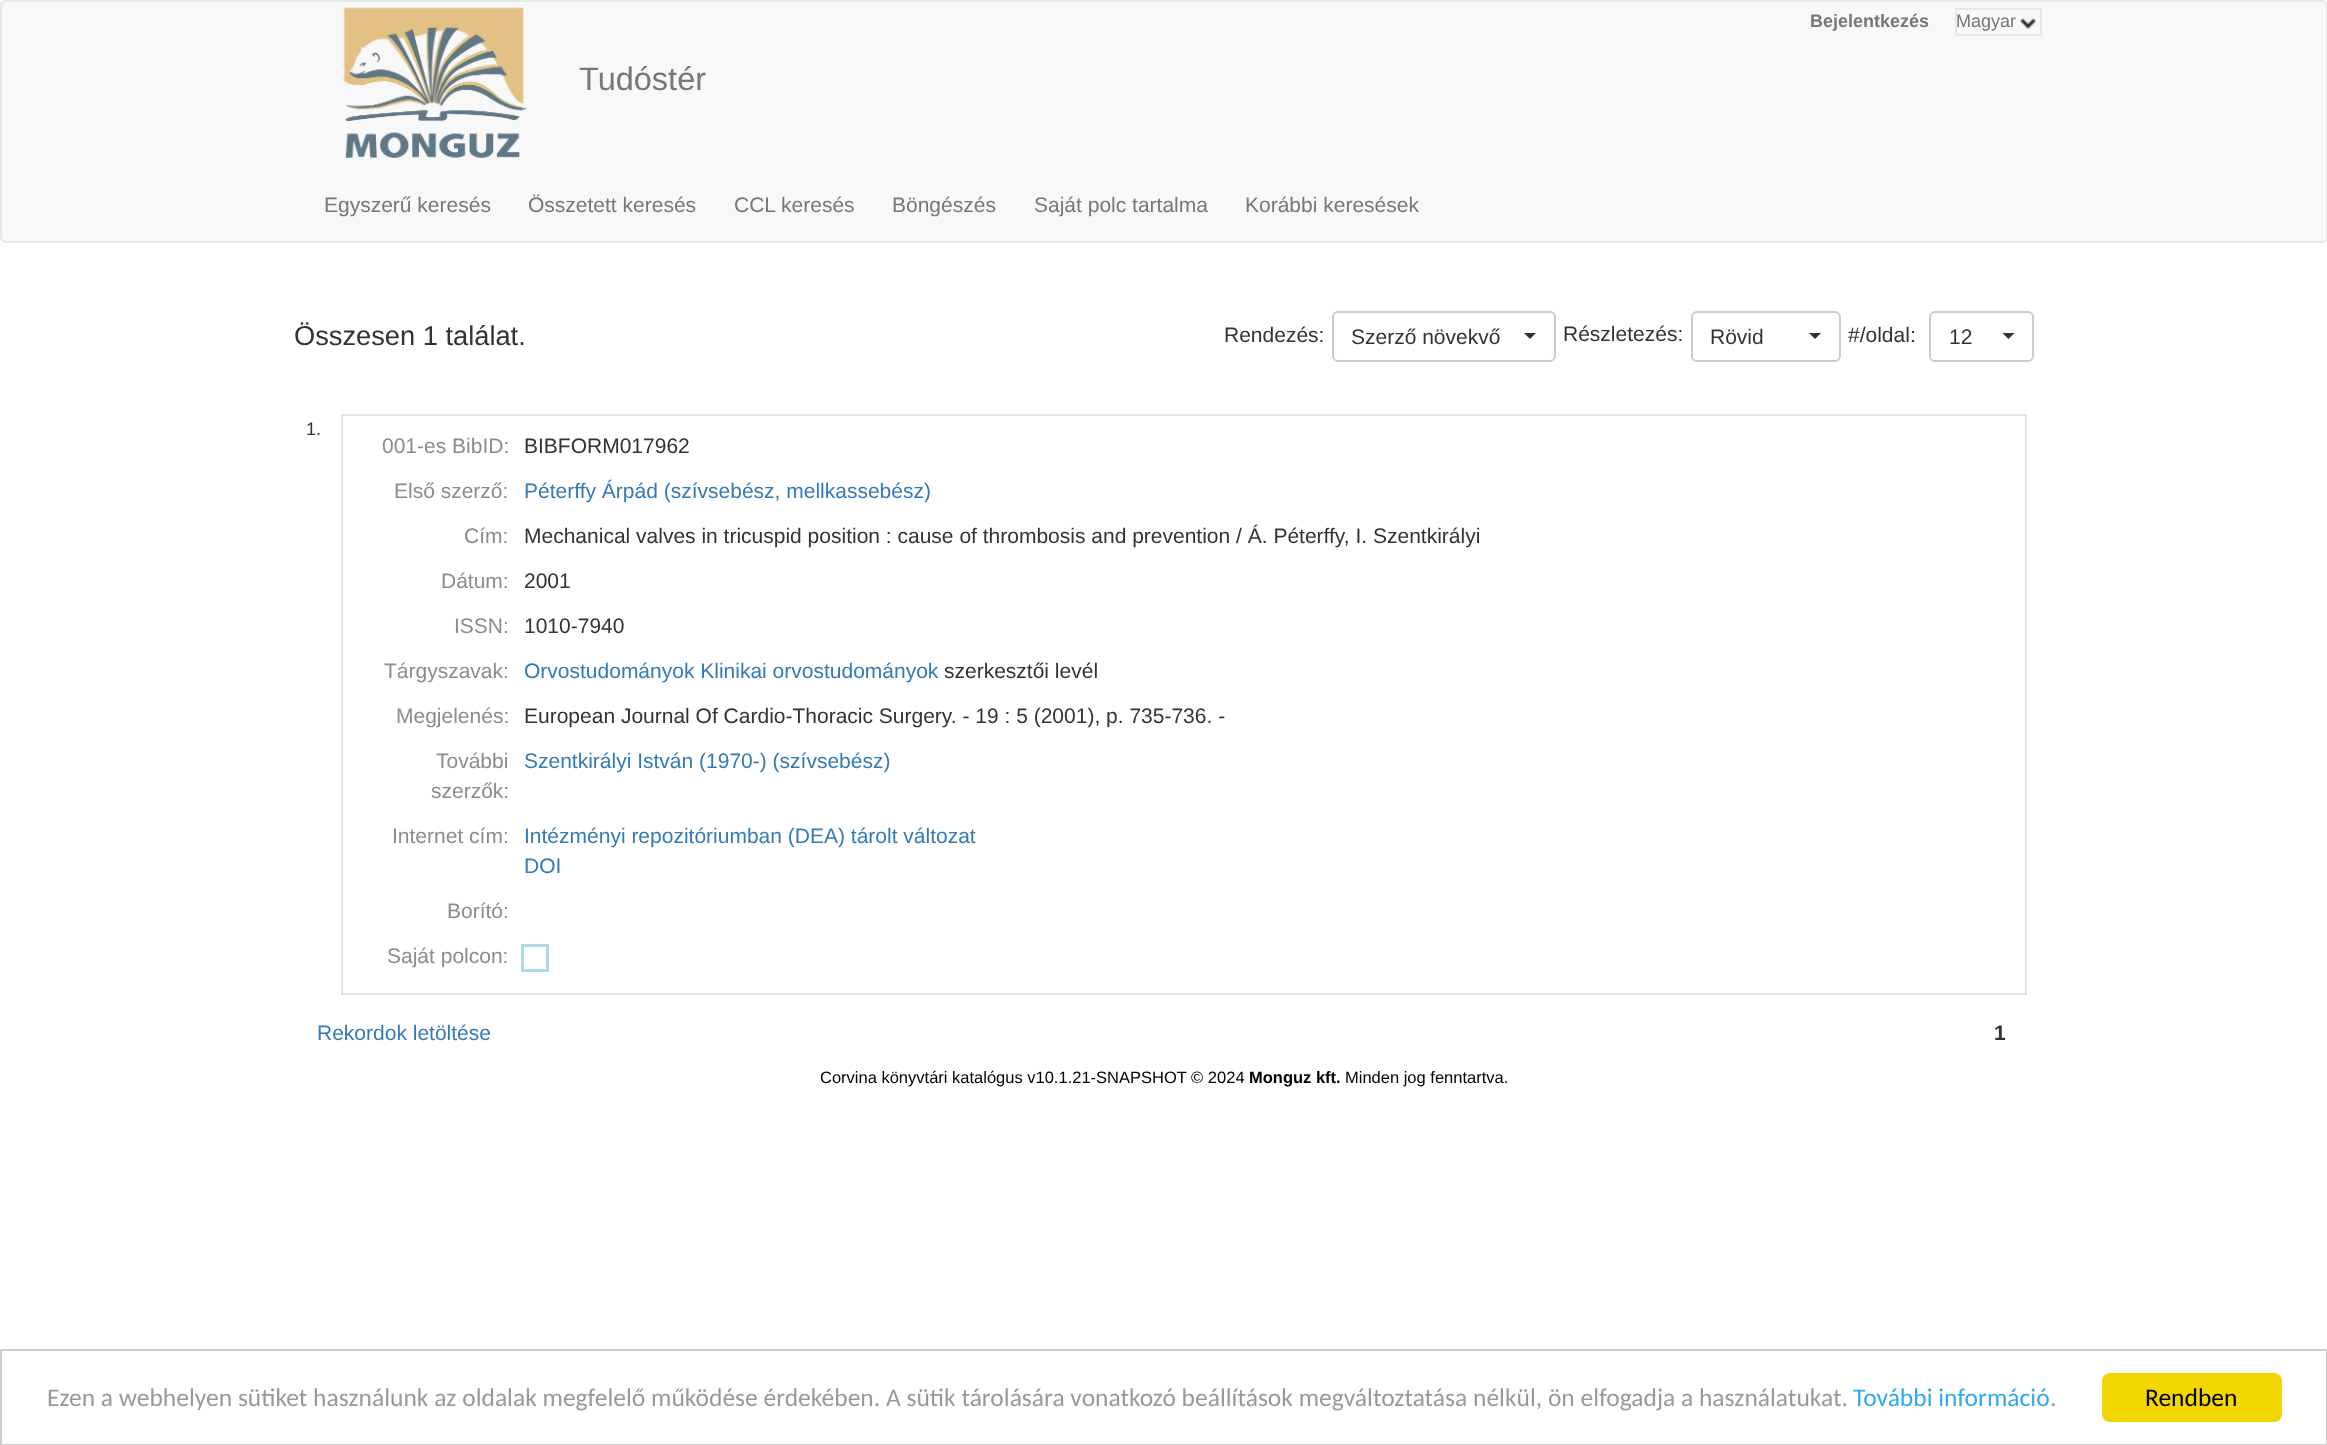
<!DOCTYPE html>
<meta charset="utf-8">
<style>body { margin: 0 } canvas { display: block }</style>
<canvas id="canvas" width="2327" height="1445"></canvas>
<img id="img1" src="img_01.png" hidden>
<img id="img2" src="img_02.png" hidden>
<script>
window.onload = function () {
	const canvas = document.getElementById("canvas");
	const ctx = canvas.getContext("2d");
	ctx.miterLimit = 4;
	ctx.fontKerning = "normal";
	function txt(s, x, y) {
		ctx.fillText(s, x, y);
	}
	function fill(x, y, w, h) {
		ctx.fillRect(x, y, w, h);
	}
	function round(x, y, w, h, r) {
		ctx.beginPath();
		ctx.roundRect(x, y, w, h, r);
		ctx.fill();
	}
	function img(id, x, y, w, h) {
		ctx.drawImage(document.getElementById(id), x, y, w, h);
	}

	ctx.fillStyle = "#FFFFFF";
	fill(0, 0, 2327, 1445);
	ctx.fillStyle = "#F8F8F8";
	ctx.beginPath();
	ctx.roundRect(1, 1, 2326, 241, 5);
	ctx.fill();
	ctx.strokeStyle = "#E7E7E7";
	ctx.lineWidth = 2;
	ctx.stroke();
	img("img1", 2020, 17, 16, 12);
	ctx.strokeRect(1956, 9, 85, 26);
	img("img2", 343, 7, 185, 151);
	ctx.beginPath();
	ctx.roundRect(1333, 312, 222, 49, 5);
	ctx.strokeStyle = "#CCCCCC";
	ctx.stroke();
	ctx.fillStyle = "#333333";
	ctx.beginPath();
	ctx.moveTo(1524, 333);
	ctx.lineTo(1536, 333);
	ctx.lineTo(1530, 339);
	ctx.closePath();
	ctx.fill();
	ctx.beginPath();
	ctx.roundRect(1692, 312, 148, 49, 5);
	ctx.stroke();
	ctx.beginPath();
	ctx.moveTo(1809, 333);
	ctx.lineTo(1821, 333);
	ctx.lineTo(1815, 339);
	ctx.closePath();
	ctx.fill();
	ctx.beginPath();
	ctx.roundRect(1930, 312, 103, 49, 5);
	ctx.stroke();
	ctx.beginPath();
	ctx.moveTo(2002.5, 333);
	ctx.lineTo(2014.5, 333);
	ctx.lineTo(2008.5, 339);
	ctx.closePath();
	ctx.fill();
	ctx.fillStyle = "#E3E3E3";
	fill(341, 414, 1686, 2);
	fill(2025, 414, 2, 581);
	fill(341, 993, 1686, 2);
	fill(341, 414, 2, 581);
	ctx.strokeStyle = "#ADD8E6";
	ctx.lineWidth = 3;
	ctx.strokeRect(522.5, 945.5, 25, 25);
	ctx.strokeStyle = "#CCCCCC";
	ctx.lineWidth = 2;
	ctx.strokeRect(1, 1350, 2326, 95);
	ctx.fillStyle = "#F1D600";
	round(2102, 1373, 180, 49, 8);
	ctx.font = "bold 18px Liberation Sans";
	ctx.fillStyle = "#777777";
	txt("Bejelentkezés", 1810, 27);
	ctx.font = "18px Liberation Sans";
	txt("Magyar", 1956, 27);
	ctx.font = "32.5px Liberation Sans";
	txt("Tudóstér", 579, 90);
	ctx.font = "21px Liberation Sans";
	txt("Egyszerű keresés", 324, 212);
	txt("Összetett keresés", 528, 212);
	txt("CCL keresés", 734, 212);
	txt("Böngészés", 892, 212);
	txt("Saját polc tartalma", 1034, 212);
	txt("Korábbi keresések", 1245, 212);
	ctx.font = "27.25px Liberation Sans";
	ctx.fillStyle = "#333333";
	txt("Összesen 1 találat.", 294, 345);
	ctx.font = "21px Liberation Sans";
	txt("Rendezés:", 1224, 342);
	txt("Szerző növekvő", 1351, 344);
	txt("Részletezés:", 1563, 341);
	txt("Rövid", 1710, 344);
	txt("#/oldal:", 1848, 342);
	txt("12", 1949, 344);
	ctx.font = "18px Liberation Sans";
	txt("1.", 306, 435);
	ctx.font = "21px Liberation Sans";
	ctx.fillStyle = "#8C8C8C";
	txt("001-es BibID:", 382, 453);
	ctx.fillStyle = "#333333";
	txt("BIBFORM017962", 524, 453);
	ctx.fillStyle = "#8C8C8C";
	txt("Első szerző:", 394, 498);
	ctx.fillStyle = "#337AB7";
	txt("Péterffy Árpád (szívsebész, mellkassebész)", 524, 498);
	ctx.fillStyle = "#8C8C8C";
	txt("Cím:", 464, 543);
	ctx.fillStyle = "#333333";
	txt("Mechanical valves in tricuspid position : cause of thrombosis and prevention / Á. Péterffy, I. Szentkirályi", 524, 543);
	ctx.fillStyle = "#8C8C8C";
	txt("Dátum:", 441, 588);
	ctx.fillStyle = "#333333";
	txt("2001", 524, 588);
	ctx.fillStyle = "#8C8C8C";
	txt("ISSN:", 454, 633);
	ctx.fillStyle = "#333333";
	txt("1010-7940", 524, 633);
	ctx.fillStyle = "#8C8C8C";
	txt("Tárgyszavak:", 384, 678);
	ctx.fillStyle = "#337AB7";
	txt("Orvostudományok Klinikai orvostudományok", 524, 678);
	ctx.fillStyle = "#333333";
	txt("szerkesztői levél", 944, 678);
	ctx.fillStyle = "#8C8C8C";
	txt("Megjelenés:", 396, 723);
	ctx.fillStyle = "#333333";
	txt("European Journal Of Cardio-Thoracic Surgery. - 19 : 5 (2001), p. 735-736. -", 524, 723);
	ctx.fillStyle = "#8C8C8C";
	txt("További", 436, 768);
	txt("szerzők:", 431, 798);
	ctx.fillStyle = "#337AB7";
	txt("Szentkirályi István (1970-) (szívsebész)", 524, 768);
	ctx.fillStyle = "#8C8C8C";
	txt("Internet cím:", 392, 843);
	ctx.fillStyle = "#337AB7";
	txt("Intézményi repozitóriumban (DEA) tárolt változat", 524, 843);
	txt("DOI", 524, 873);
	ctx.fillStyle = "#8C8C8C";
	txt("Borító:", 447, 918);
	txt("Saját polcon:", 387, 963);
	ctx.fillStyle = "#337AB7";
	txt("Rekordok letöltése", 317, 1040);
	ctx.font = "bold 21px Liberation Sans";
	ctx.fillStyle = "#333333";
	txt("1", 1994, 1040);
	ctx.font = "16.5px Liberation Sans";
	ctx.fillStyle = "#000000";
	txt("Corvina könyvtári katalógus v10.1.21-SNAPSHOT © 2024", 820, 1083);
	ctx.font = "bold 16.5px Liberation Sans";
	txt("Monguz kft.", 1249, 1083);
	ctx.font = "16.5px Liberation Sans";
	txt("Minden jog fenntartva.", 1345, 1083);
	ctx.font = "25.5px Carlito";
	ctx.fillStyle = "#999999";
	txt("Ezen a webhelyen sütiket használunk az oldalak megfelelő működése érdekében. A sütik tárolására vonatkozó beállítások megváltoztatása nélkül, ön elfogadja a használatukat.", 47, 1406);
	ctx.fillStyle = "#31A8F0";
	txt("További információ", 1853, 1406);
	ctx.fillStyle = "#999999";
	txt(".", 2050, 1406);
	ctx.fillStyle = "#000000";
	txt("Rendben", 2145, 1406);
};
</script>
